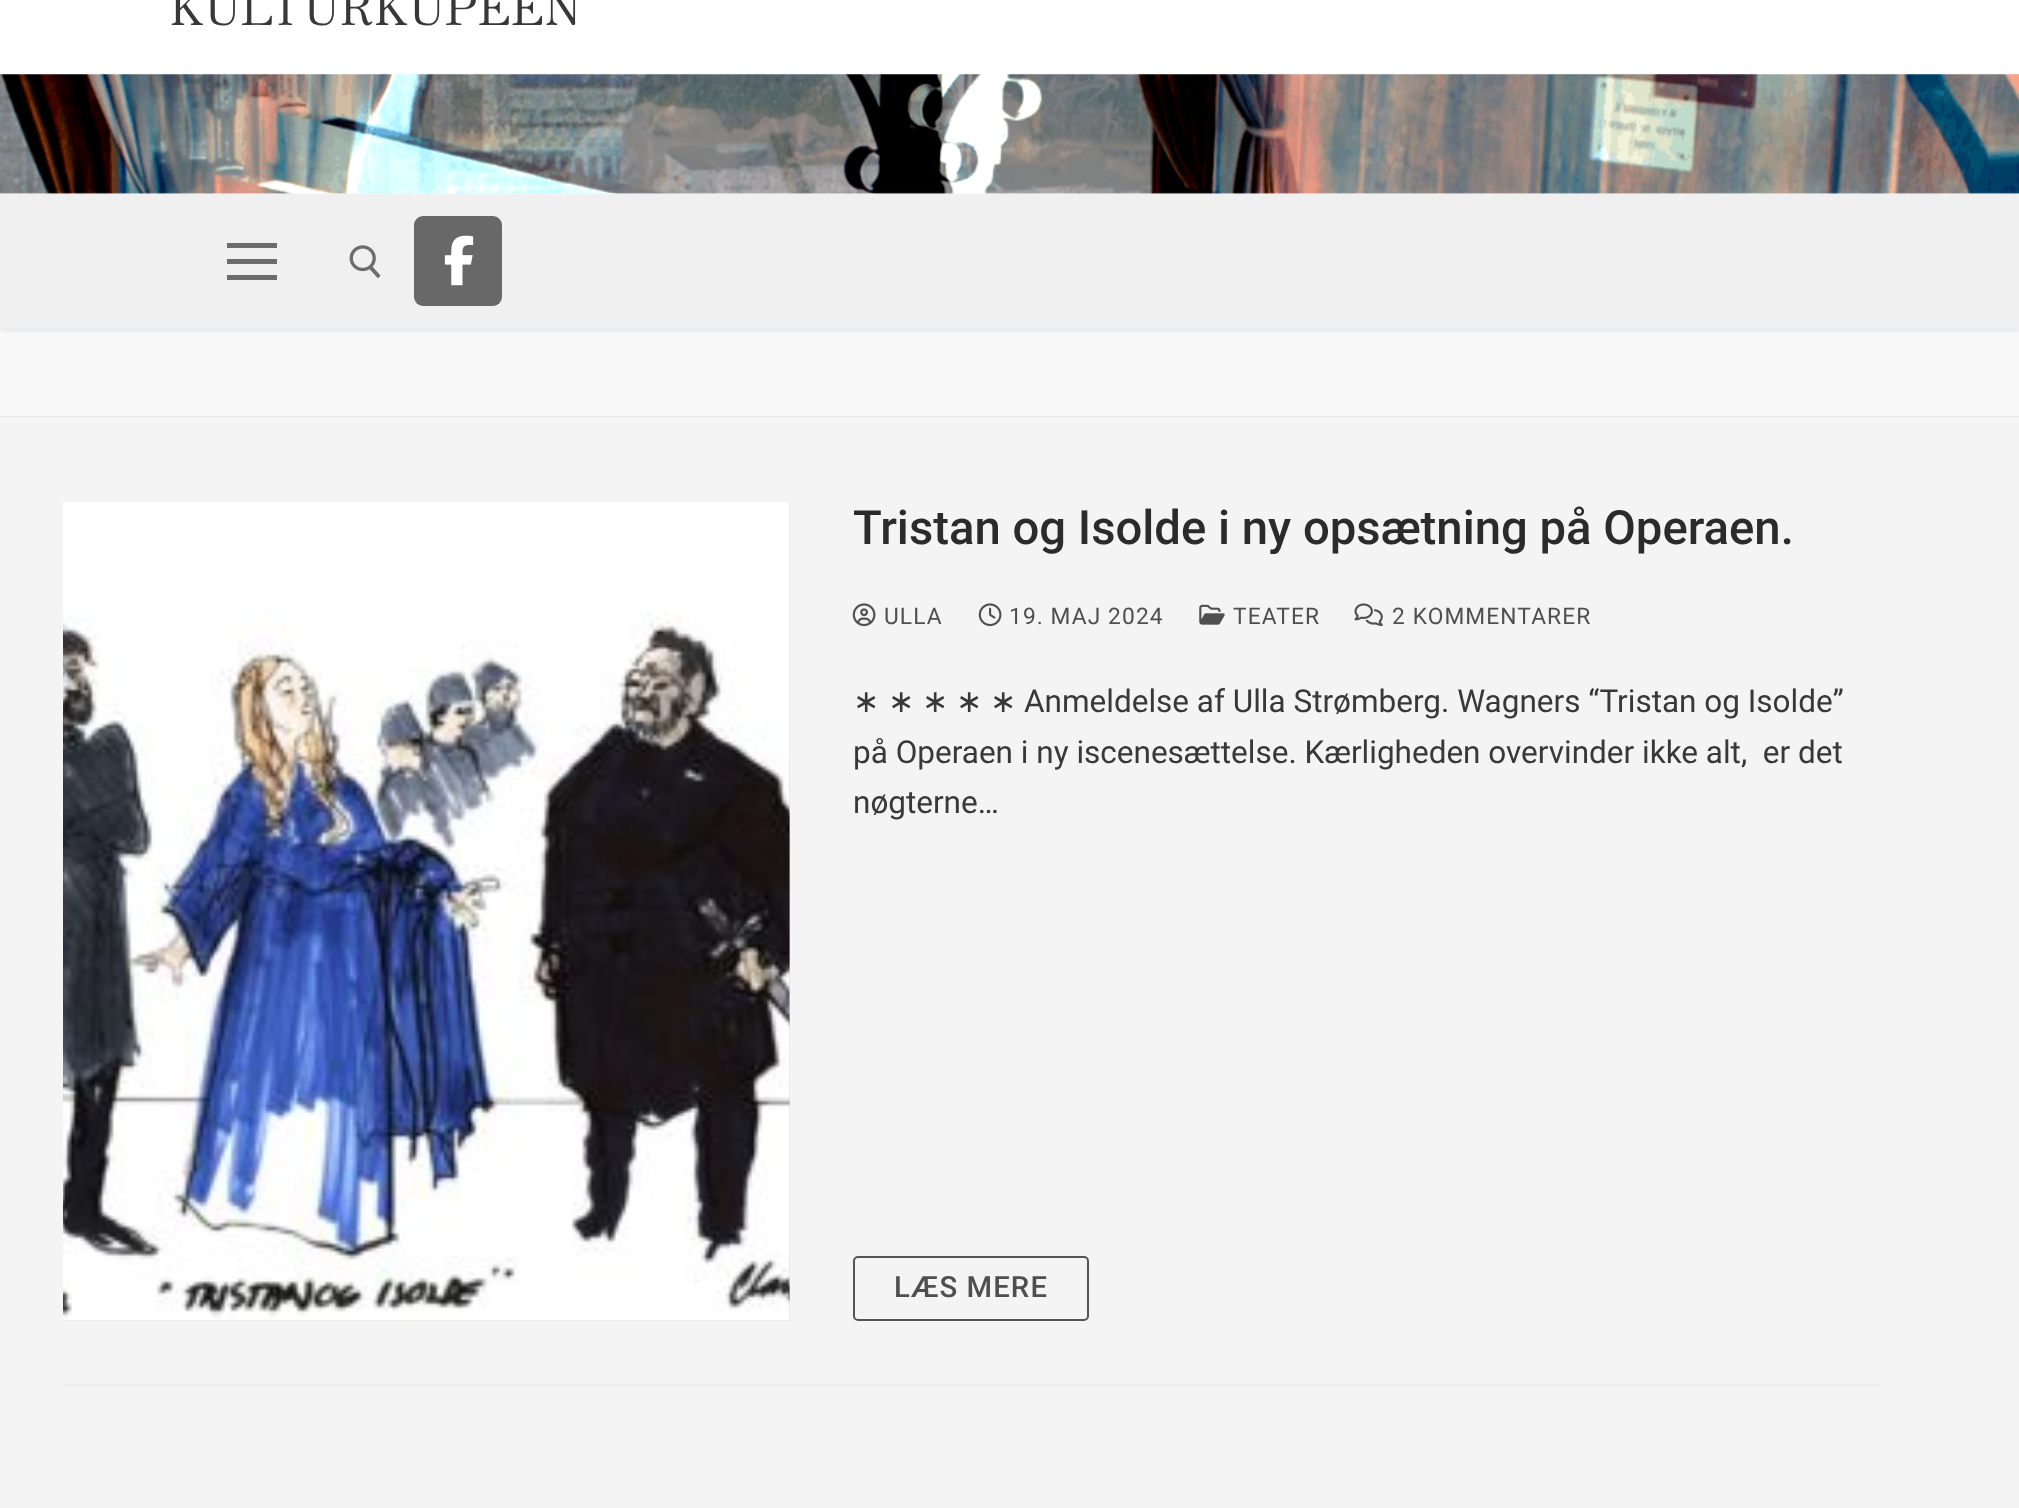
<!DOCTYPE html>
<meta charset="utf-8">
<style>body { margin: 0 } canvas { display: block }</style>
<canvas id="canvas" width="2019" height="1508"></canvas>
<img id="img1" src="img_01.png" hidden>
<img id="img2" src="img_02.png" hidden>
<img id="img3" src="img_03.png" hidden>
<img id="img4" src="img_04.png" hidden>
<img id="img5" src="img_05.png" hidden>
<img id="img6" src="img_06.png" hidden>
<img id="img7" src="img_07.png" hidden>
<img id="img8" src="img_08.png" hidden>
<script>
window.onload = function () {
	const canvas = document.getElementById("canvas");
	const ctx = canvas.getContext("2d");
	ctx.miterLimit = 4;
	ctx.fontKerning = "normal";
	function txt(s, x, y) {
		ctx.fillText(s, x, y);
	}
	function fill(x, y, w, h) {
		ctx.fillRect(x, y, w, h);
	}
	function round(x, y, w, h, r) {
		ctx.beginPath();
		ctx.roundRect(x, y, w, h, r);
		ctx.fill();
	}
	function img(id, x, y, w, h) {
		ctx.drawImage(document.getElementById(id), x, y, w, h);
	}

	ctx.fillStyle = "#FFFFFF";
	fill(0, 0, 2019, 1508);
	ctx.fillStyle = "#E1E5EA";
	ctx.filter = "blur(2px)";
	ctx.beginPath();
	ctx.rect(0, 77, 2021, 119);
	ctx.fill();
	ctx.filter = "none";
	ctx.fillStyle = "#FFFFFF";
	fill(0, 74, 2019, 120);
	img("img1", 0, 74, 2019, 120);
	ctx.fillStyle = "#F9F9F9";
	fill(0, 329, 2019, 90);
	ctx.fillStyle = "#E1E5EA";
	ctx.filter = "blur(2px)";
	ctx.beginPath();
	ctx.rect(0, 196, 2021, 135);
	ctx.fill();
	ctx.filter = "none";
	ctx.fillStyle = "#F0F0F0";
	fill(0, 194, 2019, 135);
	ctx.fillStyle = "#6C6C6C";
	fill(227, 259, 50, 5);
	fill(227, 243, 50, 5);
	fill(227, 275, 50, 5);
	img("img2", 349, 245, 32, 34);
	ctx.fillStyle = "#686868";
	round(414, 216, 88, 90, 9);
	img("img3", 444, 235, 30, 51);
	ctx.fillStyle = "#EAECEE";
	fill(0, 416, 2019, 2);
	ctx.fillStyle = "#F4F4F4";
	fill(0, 419, 2019, 1089);
	ctx.fillStyle = "#EAECEE";
	fill(63, 1384, 1818, 2);
	ctx.fillStyle = "#D5D5D5";
	fill(63, 502, 727, 819);
	img("img4", 63, 502, 727, 819);
	img("img5", 852, 603, 24, 24);
	img("img6", 978, 603, 24, 24);
	img("img7", 1199, 604, 26, 21);
	img("img8", 1354, 603, 29, 24);
	ctx.beginPath();
	ctx.roundRect(854, 1257, 234, 63, 4);
	ctx.strokeStyle = "#545454";
	ctx.lineWidth = 2;
	ctx.stroke();
	ctx.letterSpacing = "0.9px";
	ctx.font = "47.25px Zen Old Mincho";
	ctx.fillStyle = "#383838";
	txt("KULTURKUPEEN", 170, 25);
	ctx.letterSpacing = "0px";
	ctx.font = "500 47.25px Roboto";
	ctx.fillStyle = "#2B2B2B";
	txt("Tristan og Isolde i ny opsætning på Operaen.", 853, 544);
	ctx.letterSpacing = "1.1px";
	ctx.font = "22.75px Roboto";
	ctx.fillStyle = "#4F4F4F";
	txt("ULLA", 884, 624);
	txt("19. MAJ 2024", 1009, 624);
	txt("TEATER", 1233, 624);
	txt("2 KOMMENTARER", 1392, 624);
	ctx.letterSpacing = "0px";
	ctx.font = "31.5px DejaVu Sans";
	ctx.fillStyle = "#383838";
	txt("∗", 853, 712);
	txt("∗", 888, 712);
	txt("∗", 922, 712);
	txt("∗", 956, 712);
	txt("∗", 990, 712);
	ctx.font = "31.5px Roboto";
	txt("Anmeldelse af Ulla Strømberg. Wagners “Tristan og Isolde”", 1024, 712);
	txt("på Operaen i ny iscenesættelse. Kærligheden overvinder ikke alt,  er det", 853, 763);
	txt("nøgterne…", 853, 813);
	ctx.letterSpacing = "1.1px";
	ctx.font = "500 29.25px Roboto";
	ctx.fillStyle = "#4F4F4F";
	txt("LÆS MERE", 894, 1297);
};
</script>
